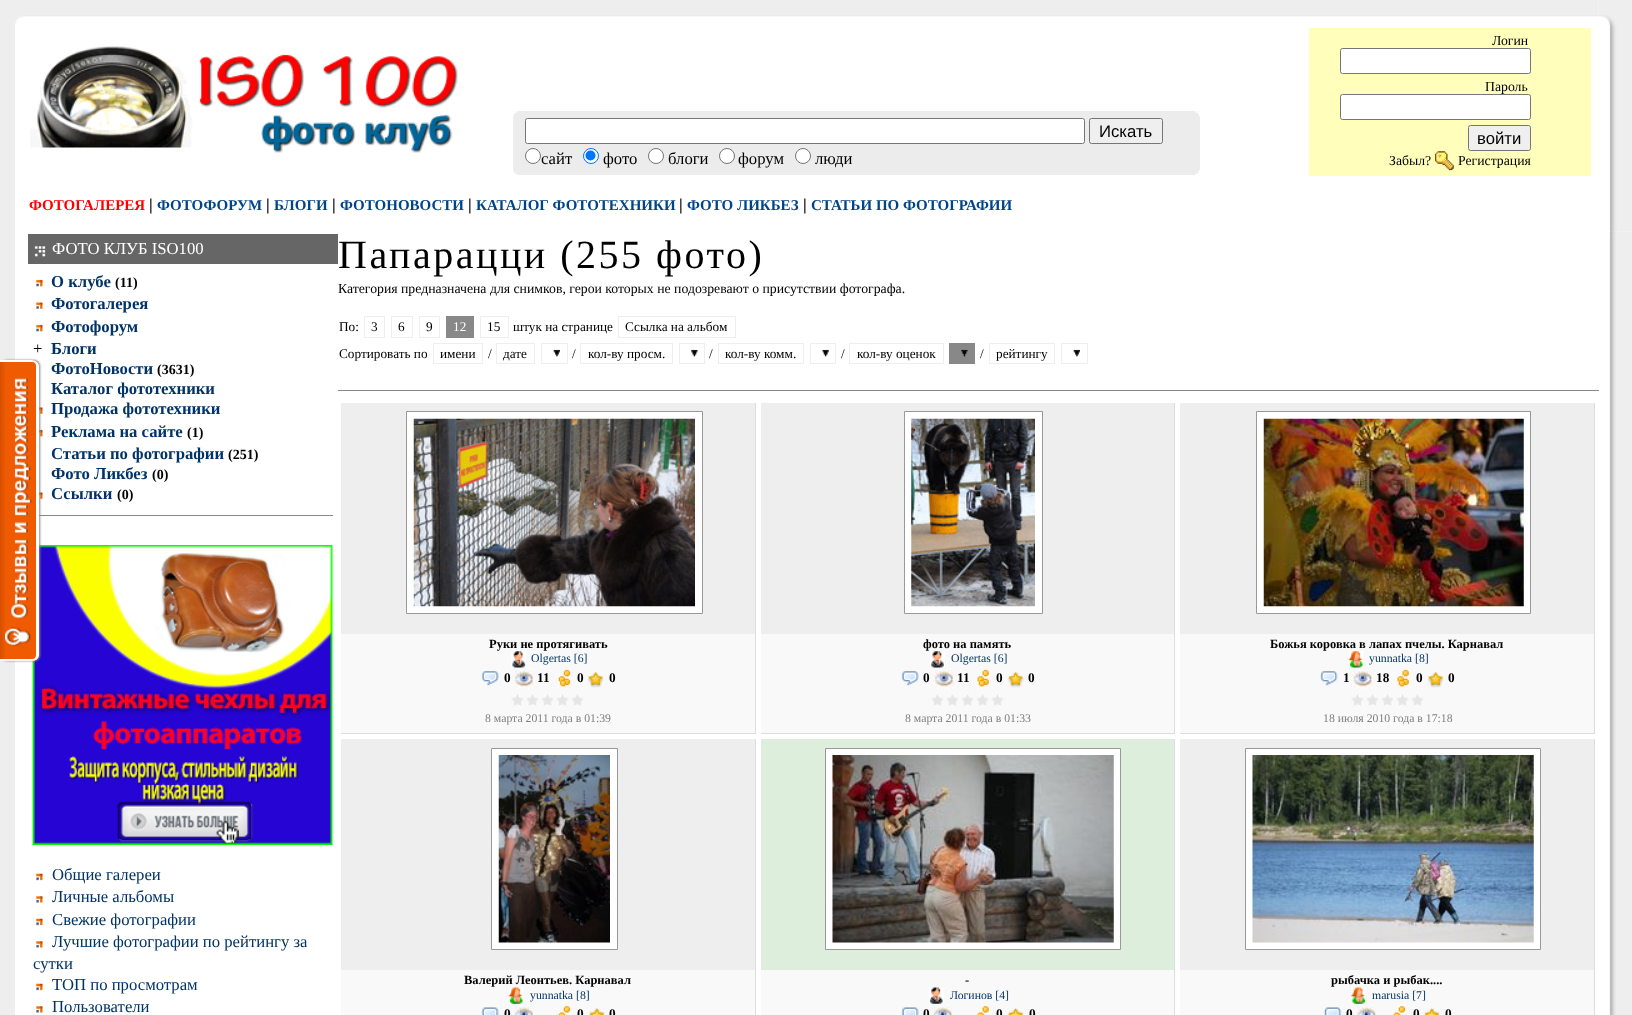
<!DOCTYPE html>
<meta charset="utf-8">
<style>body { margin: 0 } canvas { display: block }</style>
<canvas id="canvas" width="1632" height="1015"></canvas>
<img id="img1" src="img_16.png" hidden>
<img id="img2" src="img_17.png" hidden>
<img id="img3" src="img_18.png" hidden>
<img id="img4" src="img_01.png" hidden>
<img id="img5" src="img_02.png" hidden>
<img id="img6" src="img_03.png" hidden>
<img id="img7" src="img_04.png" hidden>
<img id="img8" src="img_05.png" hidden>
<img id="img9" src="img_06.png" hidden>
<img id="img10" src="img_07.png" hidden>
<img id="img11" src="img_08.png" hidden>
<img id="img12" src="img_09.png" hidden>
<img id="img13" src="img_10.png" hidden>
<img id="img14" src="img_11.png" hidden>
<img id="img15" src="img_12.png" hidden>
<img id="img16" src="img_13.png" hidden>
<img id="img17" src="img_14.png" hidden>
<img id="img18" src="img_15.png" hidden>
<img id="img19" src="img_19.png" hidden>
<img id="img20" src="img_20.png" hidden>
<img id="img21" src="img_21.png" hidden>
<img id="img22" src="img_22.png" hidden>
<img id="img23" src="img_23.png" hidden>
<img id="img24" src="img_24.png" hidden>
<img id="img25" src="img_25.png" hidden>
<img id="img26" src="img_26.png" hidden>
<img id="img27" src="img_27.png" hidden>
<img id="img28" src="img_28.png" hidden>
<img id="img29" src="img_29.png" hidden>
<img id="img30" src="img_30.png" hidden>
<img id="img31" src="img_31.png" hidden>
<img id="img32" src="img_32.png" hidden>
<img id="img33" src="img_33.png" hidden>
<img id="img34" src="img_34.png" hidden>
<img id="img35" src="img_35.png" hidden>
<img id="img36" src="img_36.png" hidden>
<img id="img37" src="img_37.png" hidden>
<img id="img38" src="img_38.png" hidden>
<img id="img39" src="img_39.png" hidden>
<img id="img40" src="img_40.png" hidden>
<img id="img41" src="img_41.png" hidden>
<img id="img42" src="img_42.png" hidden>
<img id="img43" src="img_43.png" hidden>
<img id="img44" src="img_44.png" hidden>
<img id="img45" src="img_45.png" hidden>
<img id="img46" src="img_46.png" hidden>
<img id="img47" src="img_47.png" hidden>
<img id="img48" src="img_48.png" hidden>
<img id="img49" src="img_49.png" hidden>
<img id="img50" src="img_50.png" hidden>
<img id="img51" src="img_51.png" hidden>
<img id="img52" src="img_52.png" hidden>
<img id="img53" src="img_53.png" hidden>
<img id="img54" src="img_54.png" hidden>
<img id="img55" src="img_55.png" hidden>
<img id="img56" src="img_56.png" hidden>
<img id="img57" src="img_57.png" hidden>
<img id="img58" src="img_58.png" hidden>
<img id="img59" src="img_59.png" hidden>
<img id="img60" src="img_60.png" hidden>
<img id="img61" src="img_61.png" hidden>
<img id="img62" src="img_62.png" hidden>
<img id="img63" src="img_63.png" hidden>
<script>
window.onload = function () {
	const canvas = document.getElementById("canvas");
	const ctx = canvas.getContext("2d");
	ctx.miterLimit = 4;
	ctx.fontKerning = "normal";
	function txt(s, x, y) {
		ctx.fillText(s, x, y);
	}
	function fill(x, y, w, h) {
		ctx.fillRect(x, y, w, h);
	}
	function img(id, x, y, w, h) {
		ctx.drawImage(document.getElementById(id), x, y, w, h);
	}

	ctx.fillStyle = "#FFFFFF";
	fill(0, 0, 1632, 1015);
	ctx.fillStyle = "#EEEEEE";
	fill(0, 25, 15, 990);
	img("img1", 39, 407, 4, 7);
	img("img2", 39, 429, 4, 8);
	img("img1", 39, 492, 4, 7);
	ctx.fillStyle = "#888888";
	fill(33, 515, 300, 1);
	img("img3", 32, 545, 301, 300);
	ctx.filter = "blur(1px)";
	ctx.beginPath();
	ctx.roundRect(1, 360, 39, 301, 6);
	ctx.fill();
	ctx.filter = "none";
	ctx.fillStyle = "#F05A00";
	ctx.beginPath();
	ctx.roundRect(0, 360, 39, 301, [0, 6, 6, 0]);
	ctx.fill();
	img("img4", 0, 362, 5, 297);
	ctx.fillStyle = "#FFFFFF";
	ctx.beginPath();
	ctx.moveTo(0, 360);
	ctx.lineTo(32, 360);
	ctx.bezierCurveTo(36, 360, 39, 363, 39, 366);
	ctx.lineTo(39, 655);
	ctx.bezierCurveTo(39, 658, 36, 661, 32, 661);
	ctx.lineTo(0, 661);
	ctx.closePath();
	ctx.moveTo(0, 362);
	ctx.lineTo(32, 362);
	ctx.bezierCurveTo(35, 362, 36, 364, 36, 366);
	ctx.lineTo(36, 655);
	ctx.bezierCurveTo(36, 657, 35, 659, 32, 659);
	ctx.lineTo(0, 659);
	ctx.closePath();
	ctx.fill("evenodd");
	img("img5", 5, 378, 27, 269);
	img("img6", 0, 0, 25, 25);
	img("img7", 25, 0, 1574, 17);
	img("img8", 1599, 0, 33, 25);
	img("img9", 30, 46, 428, 107);
	ctx.fillStyle = "#ECECEC";
	fill(513, 111, 687, 64);
	img("img10", 513, 111, 5, 6);
	img("img11", 1195, 111, 5, 6);
	ctx.fillStyle = "#FFFFFF";
	ctx.beginPath();
	ctx.roundRect(525.5, 118.5, 559, 25, 2);
	ctx.fill();
	ctx.strokeStyle = "#767676";
	ctx.stroke();
	ctx.fillStyle = "#EFEFEF";
	ctx.beginPath();
	ctx.roundRect(1089.5, 118.5, 73, 25, 2);
	ctx.fill();
	ctx.stroke();
	ctx.fillStyle = "#FFFFFF";
	ctx.beginPath();
	ctx.arc(533, 156, 7.5, 0, Math.PI * 2);
	ctx.fill();
	ctx.stroke();
	ctx.beginPath();
	ctx.arc(591, 156, 7.5, 0, Math.PI * 2);
	ctx.fill();
	ctx.strokeStyle = "#0075FF";
	ctx.stroke();
	ctx.fillStyle = "#0075FF";
	ctx.beginPath();
	ctx.arc(590.5, 155.5, 5, 0, Math.PI * 2);
	ctx.fill();
	ctx.fillStyle = "#FFFFFF";
	ctx.beginPath();
	ctx.arc(656, 156, 7.5, 0, Math.PI * 2);
	ctx.fill();
	ctx.strokeStyle = "#767676";
	ctx.stroke();
	ctx.beginPath();
	ctx.arc(727, 156, 7.5, 0, Math.PI * 2);
	ctx.fill();
	ctx.stroke();
	ctx.beginPath();
	ctx.arc(803, 156, 7.5, 0, Math.PI * 2);
	ctx.fill();
	ctx.stroke();
	img("img12", 513, 170, 5, 5);
	img("img13", 1195, 170, 5, 5);
	ctx.fillStyle = "#FFFFBB";
	fill(1309, 28, 282, 148);
	ctx.fillStyle = "#FFFFFF";
	ctx.beginPath();
	ctx.roundRect(1340.5, 48.5, 190, 25, 2);
	ctx.fill();
	ctx.stroke();
	ctx.beginPath();
	ctx.roundRect(1340.5, 94.5, 190, 25, 2);
	ctx.fill();
	ctx.stroke();
	ctx.fillStyle = "#EFEFEF";
	ctx.beginPath();
	ctx.roundRect(1468.5, 125.5, 62, 25, 2);
	ctx.fill();
	ctx.stroke();
	img("img14", 1435, 151, 19, 20);
	img("img15", 1609, 25, 23, 206);
	ctx.fillStyle = "#C1C1C1";
	fill(1611, 122, 1, 1);
	ctx.fillStyle = "#666666";
	fill(28, 234, 310, 30);
	img("img16", 34, 246, 12, 11);
	img("img17", 36, 279, 7, 8);
	img("img18", 36, 302, 7, 7);
	img("img17", 36, 324, 7, 8);
	img("img19", 36, 873, 7, 8);
	img("img20", 36, 896, 7, 7);
	img("img19", 36, 918, 7, 8);
	img("img20", 36, 941, 7, 7);
	img("img19", 36, 983, 7, 8);
	img("img20", 36, 1006, 7, 7);
	ctx.strokeStyle = "#EEEEEE";
	ctx.strokeRect(364.5, 316.5, 20, 21);
	ctx.strokeRect(391.5, 316.5, 21, 21);
	ctx.strokeRect(419.5, 316.5, 20, 21);
	ctx.fillStyle = "#888888";
	fill(446, 316, 28, 22);
	ctx.strokeRect(480.5, 316.5, 28, 21);
	ctx.strokeRect(618.5, 316.5, 117, 21);
	ctx.strokeRect(541.5, 343.5, 26, 20);
	ctx.strokeRect(679.5, 343.5, 25, 20);
	ctx.strokeRect(810.5, 343.5, 25, 20);
	fill(949, 343, 26, 21);
	ctx.strokeRect(989.5, 343.5, 65, 20);
	ctx.strokeRect(1061.5, 343.5, 26, 20);
	ctx.strokeRect(433.5, 343.5, 49, 20);
	ctx.strokeRect(496.5, 343.5, 38, 20);
	img("img21", 553, 349, 7, 8);
	ctx.strokeRect(580.5, 343.5, 92, 20);
	img("img22", 691, 349, 7, 8);
	ctx.strokeRect(718.5, 343.5, 85, 20);
	img("img23", 822, 349, 7, 8);
	ctx.strokeRect(849.5, 343.5, 94, 20);
	img("img24", 961, 349, 7, 8);
	img("img21", 1073, 349, 7, 8);
	fill(338, 390, 1261, 1);
	ctx.fillStyle = "#EEEEEE";
	fill(341, 403, 414, 231);
	ctx.fillStyle = "#DDDDDD";
	fill(755, 403, 1, 331);
	fill(341, 733, 415, 1);
	ctx.fillStyle = "#FFFFFF";
	ctx.beginPath();
	ctx.rect(406.5, 411.5, 296, 202);
	ctx.fill();
	ctx.strokeStyle = "#999999";
	ctx.stroke();
	img("img25", 413, 418, 282, 189);
	ctx.fillStyle = "#F9F9F9";
	fill(341, 634, 414, 99);
	img("img26", 511, 651, 15, 17);
	img("img27", 481, 671, 18, 15);
	img("img28", 513, 668, 21, 21);
	img("img29", 558, 669, 13, 18);
	img("img30", 587, 672, 17, 16);
	img("img31", 511, 694, 73, 12);
	ctx.fillStyle = "#EEEEEE";
	fill(761, 403, 413, 231);
	ctx.fillStyle = "#DDDDDD";
	fill(1174, 403, 1, 331);
	fill(761, 733, 414, 1);
	ctx.fillStyle = "#FFFFFF";
	ctx.beginPath();
	ctx.rect(904.5, 411.5, 138, 202);
	ctx.fill();
	ctx.stroke();
	img("img32", 911, 418, 124, 189);
	ctx.fillStyle = "#F9F9F9";
	fill(761, 634, 413, 99);
	img("img33", 930, 651, 15, 17);
	img("img34", 901, 671, 18, 15);
	img("img35", 933, 668, 21, 21);
	img("img36", 977, 669, 12, 18);
	img("img37", 1007, 672, 17, 16);
	img("img38", 931, 694, 73, 12);
	ctx.fillStyle = "#EEEEEE";
	fill(1180, 403, 414, 231);
	ctx.fillStyle = "#DDDDDD";
	fill(1594, 403, 1, 331);
	fill(1180, 733, 415, 1);
	ctx.fillStyle = "#FFFFFF";
	ctx.beginPath();
	ctx.rect(1256.5, 411.5, 274, 202);
	ctx.fill();
	ctx.stroke();
	img("img39", 1263, 418, 261, 189);
	ctx.fillStyle = "#F9F9F9";
	fill(1180, 634, 414, 99);
	img("img40", 1348, 651, 16, 17);
	img("img41", 1320, 671, 18, 15);
	img("img42", 1352, 669, 21, 20);
	img("img43", 1397, 669, 12, 18);
	img("img30", 1427, 672, 17, 16);
	img("img44", 1351, 694, 73, 12);
	ctx.fillStyle = "#EEEEEE";
	fill(341, 739, 414, 231);
	ctx.fillStyle = "#DDDDDD";
	fill(755, 739, 1, 276);
	ctx.fillStyle = "#FFFFFF";
	ctx.beginPath();
	ctx.rect(491.5, 748.5, 126, 201);
	ctx.fill();
	ctx.stroke();
	img("img45", 498, 755, 112, 188);
	ctx.fillStyle = "#F9F9F9";
	fill(341, 970, 414, 45);
	img("img46", 508, 987, 16, 17);
	img("img47", 481, 1007, 18, 8);
	img("img48", 513, 1005, 21, 10);
	img("img49", 558, 1006, 13, 9);
	img("img50", 589, 1008, 16, 7);
	ctx.fillStyle = "#DDEEDD";
	fill(761, 739, 413, 231);
	ctx.fillStyle = "#DDDDDD";
	fill(1174, 739, 1, 276);
	ctx.fillStyle = "#FFFFFF";
	ctx.beginPath();
	ctx.rect(825.5, 748.5, 295, 201);
	ctx.fill();
	ctx.stroke();
	img("img51", 832, 755, 282, 188);
	ctx.fillStyle = "#F9F9F9";
	fill(761, 970, 413, 45);
	img("img52", 929, 987, 15, 17);
	img("img53", 901, 1007, 18, 8);
	img("img54", 932, 1005, 21, 10);
	img("img55", 977, 1006, 12, 9);
	img("img56", 1007, 1008, 17, 7);
	ctx.fillStyle = "#EEEEEE";
	fill(1180, 739, 414, 231);
	ctx.fillStyle = "#DDDDDD";
	fill(1594, 739, 1, 276);
	ctx.fillStyle = "#FFFFFF";
	ctx.beginPath();
	ctx.rect(1245.5, 748.5, 295, 201);
	ctx.fill();
	ctx.stroke();
	img("img57", 1252, 755, 282, 188);
	ctx.fillStyle = "#F9F9F9";
	fill(1180, 970, 414, 45);
	img("img58", 1351, 987, 15, 17);
	img("img59", 1323, 1007, 19, 8);
	img("img60", 1356, 1005, 20, 10);
	img("img49", 1393, 1006, 13, 9);
	img("img61", 1424, 1008, 16, 7);
	img("img62", 1609, 231, 23, 784);
	img("img63", 1610, 231, 7, 3);
	ctx.font = "16.7px Liberation Sans";
	ctx.fillStyle = "#000000";
	txt("Искать", 1099, 137);
	ctx.font = "16.7px Liberation Serif";
	txt("сайт", 541, 164);
	txt("фото", 603, 164);
	txt("блоги", 668, 164);
	txt("форум", 738, 164);
	txt("люди", 815, 164);
	ctx.font = "13.75px Liberation Serif";
	txt("Логин", 1492, 45);
	txt("Пароль", 1485, 91);
	ctx.font = "16.7px Liberation Sans";
	txt("войти", 1477, 144);
	ctx.font = "13.75px Liberation Serif";
	txt("Забыл?", 1389, 165);
	txt("Регистрация", 1458, 165);
	ctx.font = "bold 15px Liberation Serif";
	ctx.fillStyle = "#FF0000";
	txt("ФОТОГАЛЕРЕЯ", 29, 210);
	ctx.font = "bold 16.7px Liberation Serif";
	ctx.fillStyle = "#000000";
	txt("|", 149, 210);
	ctx.font = "bold 15px Liberation Serif";
	ctx.fillStyle = "#004488";
	txt("ФОТОФОРУМ", 157, 210);
	ctx.font = "bold 16.7px Liberation Serif";
	ctx.fillStyle = "#000000";
	txt("|", 266, 210);
	ctx.font = "bold 15px Liberation Serif";
	ctx.fillStyle = "#004488";
	txt("БЛОГИ", 274, 210);
	ctx.font = "bold 16.7px Liberation Serif";
	ctx.fillStyle = "#000000";
	txt("|", 332, 210);
	ctx.font = "bold 15px Liberation Serif";
	ctx.fillStyle = "#004488";
	txt("ФОТОНОВОСТИ", 340, 210);
	ctx.font = "bold 16.7px Liberation Serif";
	ctx.fillStyle = "#000000";
	txt("|", 468, 210);
	ctx.font = "bold 15px Liberation Serif";
	ctx.fillStyle = "#004488";
	txt("КАТАЛОГ ФОТОТЕХНИКИ", 476, 210);
	ctx.font = "bold 16.7px Liberation Serif";
	ctx.fillStyle = "#000000";
	txt("|", 679, 210);
	ctx.font = "bold 15px Liberation Serif";
	ctx.fillStyle = "#004488";
	txt("ФОТО ЛИКБЕЗ", 687, 210);
	ctx.font = "bold 16.7px Liberation Serif";
	ctx.fillStyle = "#000000";
	txt("|", 803, 210);
	ctx.font = "bold 15px Liberation Serif";
	ctx.fillStyle = "#004488";
	txt("СТАТЬИ ПО ФОТОГРАФИИ", 811, 210);
	ctx.font = "16.7px Liberation Serif";
	ctx.fillStyle = "#FFFFFF";
	txt("ФОТО КЛУБ ISO100", 52, 254);
	ctx.font = "bold 16.7px Liberation Serif";
	ctx.fillStyle = "#003366";
	txt("О клубе", 51, 287);
	ctx.font = "bold 14px Liberation Serif";
	ctx.fillStyle = "#000000";
	txt("(11)", 115, 287);
	ctx.font = "bold 16.7px Liberation Serif";
	ctx.fillStyle = "#003366";
	txt("Фотогалерея", 51, 309);
	txt("Фотофорум", 51, 332);
	ctx.font = "16.7px Liberation Serif";
	ctx.fillStyle = "#000000";
	txt("+", 33, 354);
	ctx.font = "bold 16.7px Liberation Serif";
	ctx.fillStyle = "#003366";
	txt("Блоги", 51, 354);
	txt("ФотоНовости", 51, 374);
	ctx.font = "bold 14px Liberation Serif";
	ctx.fillStyle = "#000000";
	txt("(3631)", 157, 374);
	ctx.font = "bold 16.7px Liberation Serif";
	ctx.fillStyle = "#003366";
	txt("Каталог фототехники", 51, 394);
	txt("Продажа фототехники", 51, 414);
	txt("Реклама на сайте", 51, 437);
	ctx.font = "bold 14px Liberation Serif";
	ctx.fillStyle = "#000000";
	txt("(1)", 187, 437);
	ctx.font = "bold 16.7px Liberation Serif";
	ctx.fillStyle = "#003366";
	txt("Статьи по фотографии", 51, 459);
	ctx.font = "bold 14px Liberation Serif";
	ctx.fillStyle = "#000000";
	txt("(251)", 228, 459);
	ctx.font = "bold 16.7px Liberation Serif";
	ctx.fillStyle = "#003366";
	txt("Фото Ликбез", 51, 479);
	ctx.font = "bold 14px Liberation Serif";
	ctx.fillStyle = "#000000";
	txt("(0)", 152, 479);
	ctx.font = "bold 16.7px Liberation Serif";
	ctx.fillStyle = "#003366";
	txt("Ссылки", 51, 499);
	ctx.font = "bold 14px Liberation Serif";
	ctx.fillStyle = "#000000";
	txt("(0)", 117, 499);
	ctx.font = "16.7px Liberation Serif";
	ctx.fillStyle = "#003366";
	txt("Общие галереи", 52, 880);
	txt("Личные альбомы", 52, 902);
	txt("Свежие фотографии", 52, 925);
	txt("Лучшие фотографии по рейтингу за", 52, 947);
	txt("сутки", 33, 969);
	txt("ТОП по просмотрам", 52, 990);
	txt("Пользователи", 52, 1012);
	ctx.letterSpacing = "2.5px";
	ctx.font = "40px Liberation Serif";
	ctx.fillStyle = "#000000";
	txt("Папарацци (255 фото)", 338, 268);
	ctx.letterSpacing = "0px";
	ctx.font = "13.75px Liberation Serif";
	txt("Категория предназначена для снимков, герои которых не подозревают о присутствии фотографа.", 338, 293);
	ctx.font = "13.25px Liberation Serif";
	txt("По:", 339, 331);
	txt("3", 371, 331);
	txt("6", 398, 331);
	txt("9", 426, 331);
	ctx.fillStyle = "#FFFFFF";
	txt("12", 453, 331);
	ctx.fillStyle = "#000000";
	txt("15", 487, 331);
	txt("штук на странице", 513, 331);
	txt("Ссылка на альбом", 625, 331);
	txt("Сортировать по", 339, 358);
	txt("/", 488, 358);
	txt("рейтингу", 996, 358);
	txt("имени", 440, 358);
	txt("дате", 503, 358);
	txt("/", 572, 358);
	txt("кол-ву просм.", 588, 358);
	txt("/", 709, 358);
	txt("кол-ву комм.", 725, 358);
	txt("/", 841, 358);
	txt("кол-ву оценок", 857, 358);
	txt("/", 980, 358);
	ctx.font = "bold 12.5px Liberation Serif";
	txt("Руки не протягивать", 489, 648);
	ctx.font = "11.75px Liberation Serif";
	ctx.fillStyle = "#003366";
	txt("Olgertas [6]", 531, 662);
	ctx.font = "bold 13.25px Liberation Serif";
	ctx.fillStyle = "#000000";
	txt("0", 504, 682);
	txt("11", 537, 682);
	txt("0", 577, 682);
	txt("0", 609, 682);
	ctx.font = "11.75px Liberation Serif";
	ctx.fillStyle = "#808080";
	txt("8 марта 2011 года в 01:39", 485, 722);
	ctx.font = "bold 12.5px Liberation Serif";
	ctx.fillStyle = "#000000";
	txt("фото на память", 923, 648);
	ctx.font = "11.75px Liberation Serif";
	ctx.fillStyle = "#003366";
	txt("Olgertas [6]", 951, 662);
	ctx.font = "bold 13.25px Liberation Serif";
	ctx.fillStyle = "#000000";
	txt("0", 923, 682);
	txt("11", 957, 682);
	txt("0", 996, 682);
	txt("0", 1028, 682);
	ctx.font = "11.75px Liberation Serif";
	ctx.fillStyle = "#808080";
	txt("8 марта 2011 года в 01:33", 905, 722);
	ctx.font = "bold 12.5px Liberation Serif";
	ctx.fillStyle = "#000000";
	txt("Божья коровка в лапах пчелы. Карнавал", 1270, 648);
	ctx.font = "11.75px Liberation Serif";
	ctx.fillStyle = "#003366";
	txt("yunnatka [8]", 1369, 662);
	ctx.font = "bold 13.25px Liberation Serif";
	ctx.fillStyle = "#000000";
	txt("1", 1343, 682);
	txt("18", 1376, 682);
	txt("0", 1416, 682);
	txt("0", 1448, 682);
	ctx.font = "11.75px Liberation Serif";
	ctx.fillStyle = "#808080";
	txt("18 июля 2010 года в 17:18", 1323, 722);
	ctx.font = "bold 12.5px Liberation Serif";
	ctx.fillStyle = "#000000";
	txt("Валерий Леонтьев. Карнавал", 464, 984);
	ctx.font = "11.75px Liberation Serif";
	ctx.fillStyle = "#003366";
	txt("yunnatka [8]", 530, 999);
	ctx.font = "bold 13.25px Liberation Serif";
	ctx.fillStyle = "#000000";
	txt("0", 504, 1018);
	txt("0", 577, 1018);
	txt("0", 609, 1018);
	ctx.font = "bold 12.5px Liberation Serif";
	txt("-", 965, 984);
	ctx.font = "11.75px Liberation Serif";
	ctx.fillStyle = "#003366";
	txt("Логинов [4]", 950, 999);
	ctx.font = "bold 13.25px Liberation Serif";
	ctx.fillStyle = "#000000";
	txt("0", 923, 1018);
	txt("0", 996, 1018);
	txt("0", 1029, 1018);
	ctx.font = "bold 12.5px Liberation Serif";
	txt("рыбачка и рыбак....", 1331, 984);
	ctx.font = "11.75px Liberation Serif";
	ctx.fillStyle = "#003366";
	txt("marusia [7]", 1372, 999);
	ctx.font = "bold 13.25px Liberation Serif";
	ctx.fillStyle = "#000000";
	txt("0", 1346, 1018);
	txt("0", 1413, 1018);
	txt("0", 1445, 1018);
};
</script>
